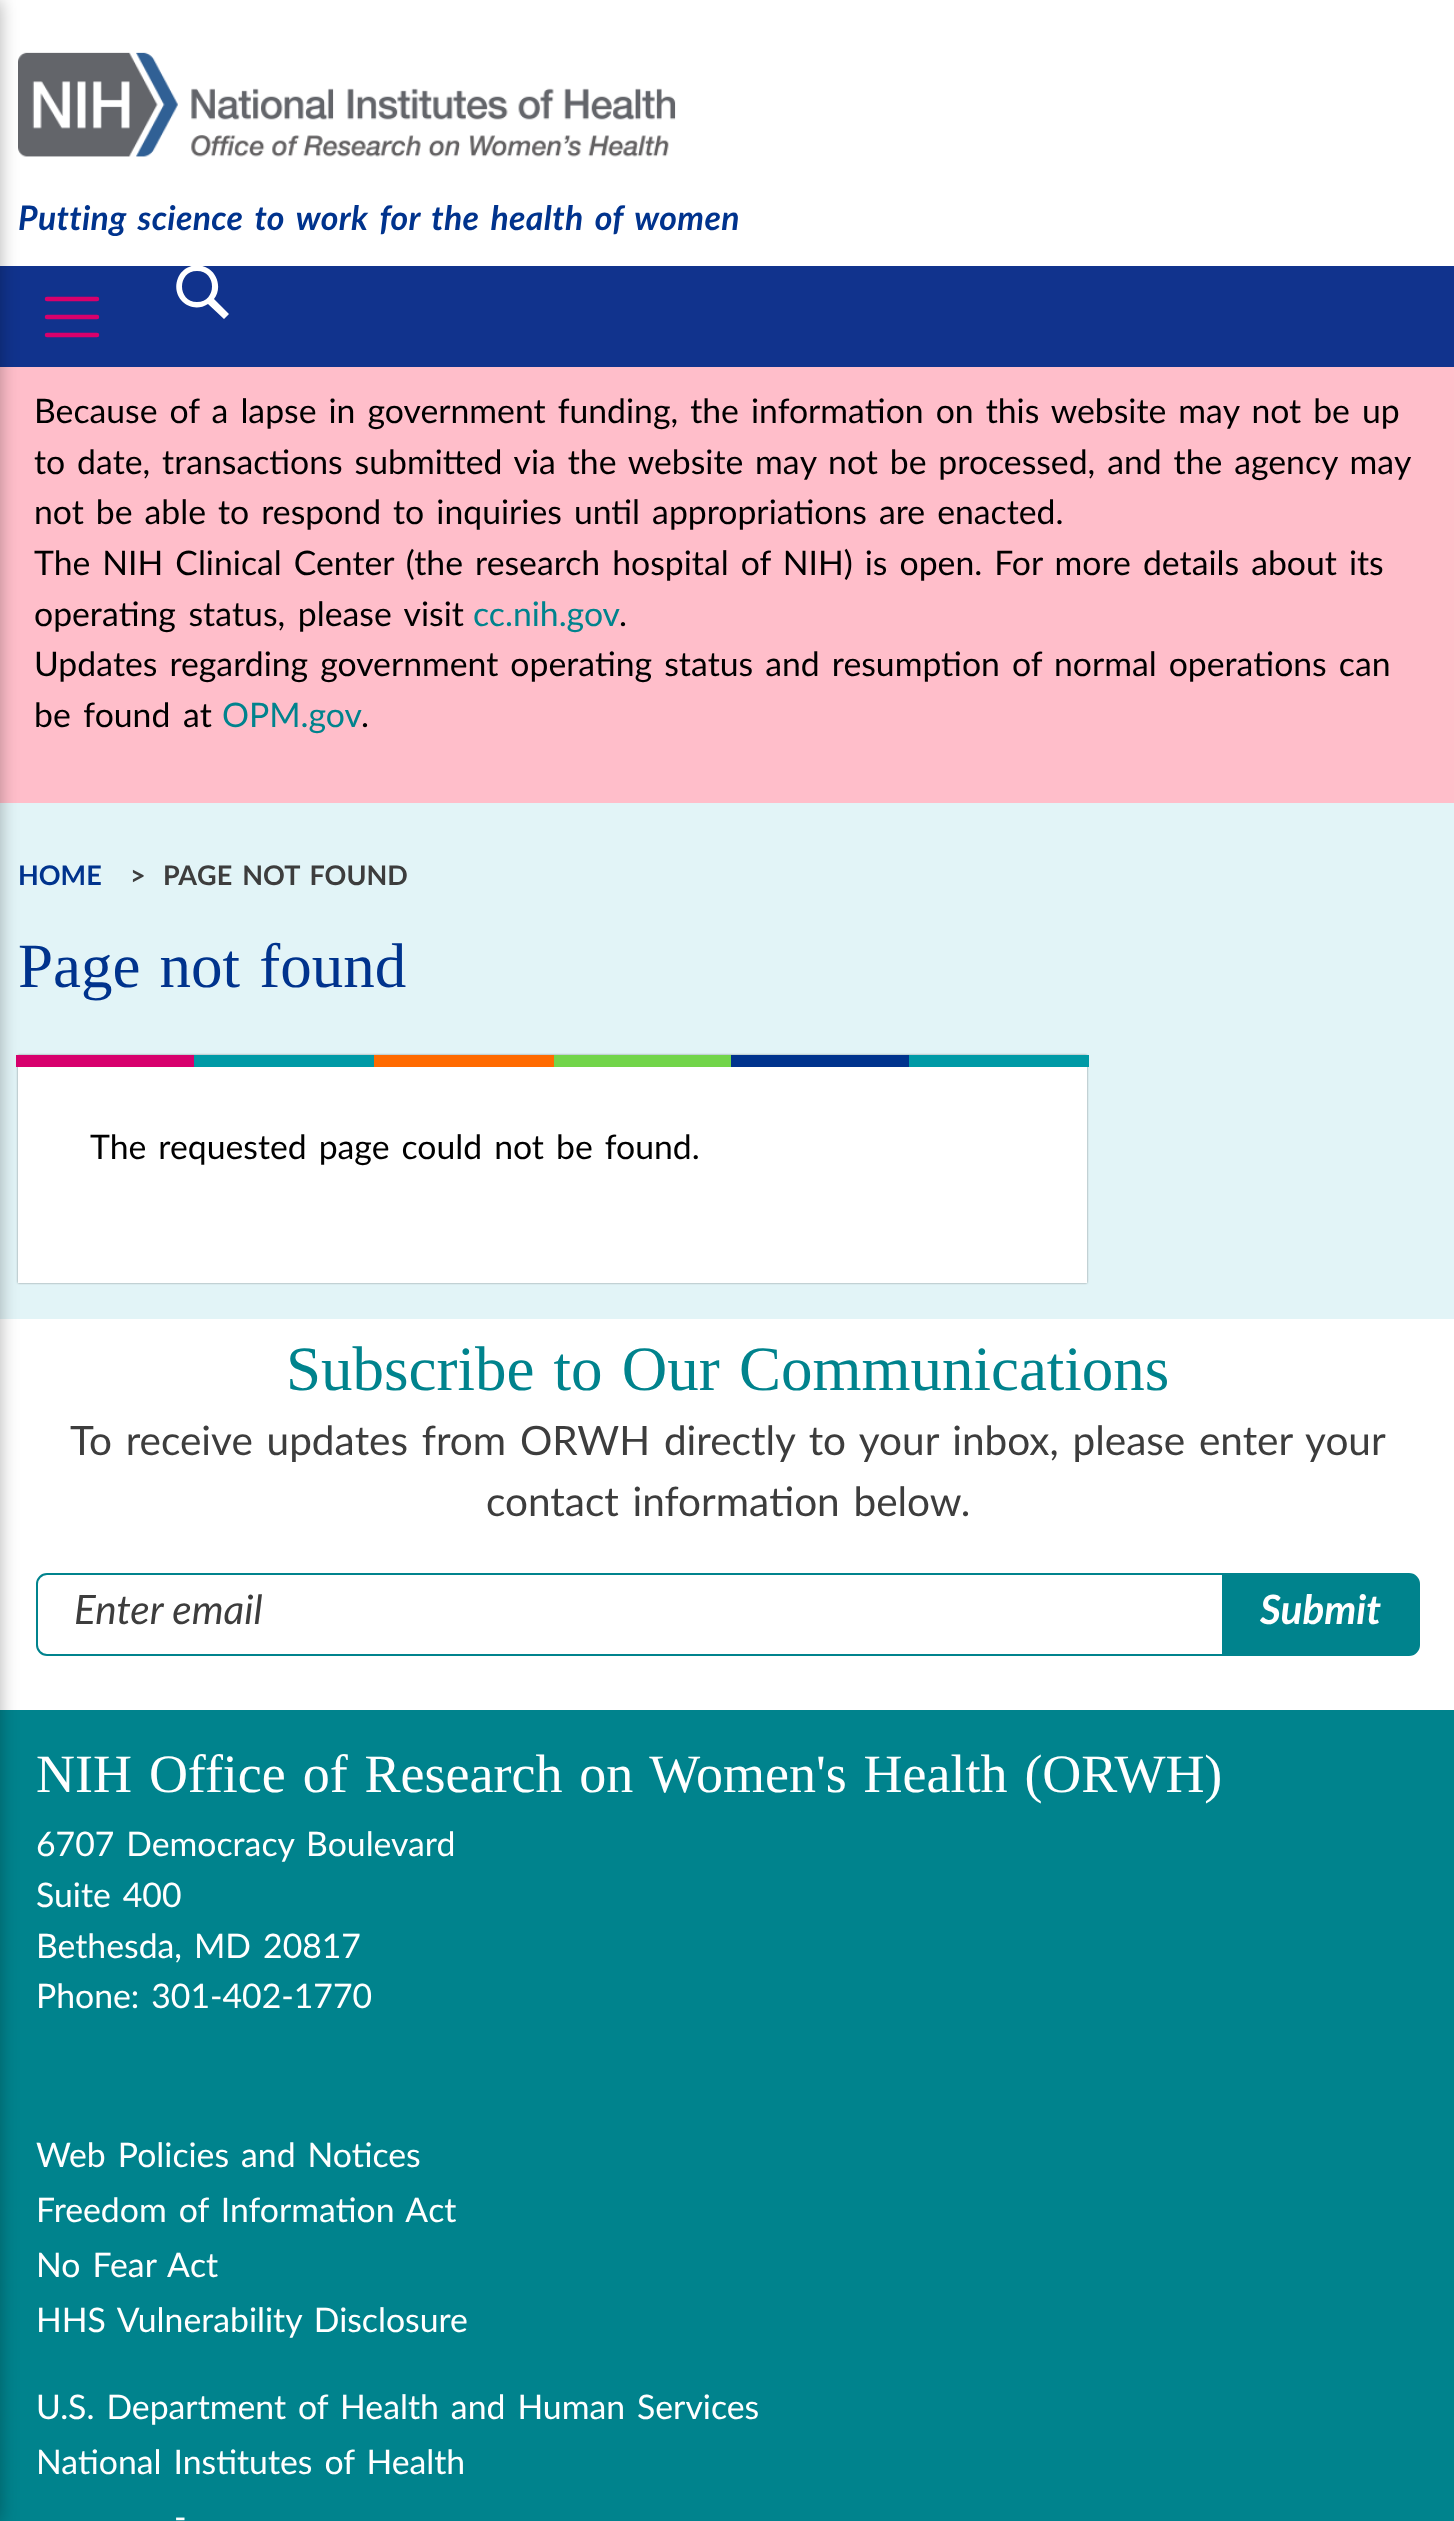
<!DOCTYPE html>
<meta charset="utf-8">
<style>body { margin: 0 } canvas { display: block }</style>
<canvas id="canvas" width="1454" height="2521"></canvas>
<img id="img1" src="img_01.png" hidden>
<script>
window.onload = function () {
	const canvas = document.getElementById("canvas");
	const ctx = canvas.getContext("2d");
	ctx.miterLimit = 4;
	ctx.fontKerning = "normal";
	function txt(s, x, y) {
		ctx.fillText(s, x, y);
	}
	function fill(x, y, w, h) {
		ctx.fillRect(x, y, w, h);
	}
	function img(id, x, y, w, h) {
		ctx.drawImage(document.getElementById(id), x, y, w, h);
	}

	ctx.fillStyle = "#E2F4F7";
	fill(0, 0, 1454, 2521);
	ctx.fillStyle = "#FFFFFF";
	fill(0, 0, 1454, 266);
	ctx.fillStyle = "#11338D";
	fill(0, 266, 1454, 101);
	img("img1", 18, 52, 658, 105);
	ctx.fillStyle = "#FFBECA";
	fill(0, 367, 1454, 436);
	ctx.fillStyle = "rgba(0, 0, 0, 0.42)";
	ctx.filter = "blur(1px)";
	ctx.beginPath();
	ctx.rect(18, 1055, 1069, 228);
	ctx.fill();
	ctx.filter = "none";
	ctx.fillStyle = "#FFFFFF";
	fill(18, 1067, 1069, 216);
	ctx.fillStyle = "#D7006D";
	fill(16, 1055, 178, 12);
	ctx.fillStyle = "#FFFFFF";
	fill(0, 1319, 1454, 391);
	ctx.fillStyle = "#00838D";
	fill(0, 1710, 1454, 811);
	ctx.fillStyle = "rgba(0, 0, 0, 0.3)";
	ctx.filter = "blur(9px)";
	ctx.beginPath();
	ctx.rect(-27, 0, 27, 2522);
	ctx.fill();
	ctx.filter = "none";
	ctx.beginPath();
	ctx.moveTo(47, 299);
	ctx.lineTo(97, 299);
	ctx.moveTo(47, 317);
	ctx.lineTo(97, 317);
	ctx.moveTo(47, 335);
	ctx.lineTo(97, 335);
	ctx.strokeStyle = "#D9006C";
	ctx.lineWidth = 4.5;
	ctx.lineCap = "round";
	ctx.stroke();
	ctx.save();
	ctx.beginPath();
	ctx.rect(176, 266, 54, 54);
	ctx.clip();
	ctx.fillStyle = "#FFFFFF";
	ctx.beginPath();
	ctx.moveTo(214, 299);
	ctx.bezierCurveTo(221, 290, 219, 276, 209, 269);
	ctx.bezierCurveTo(203, 265, 195, 264, 189, 267);
	ctx.bezierCurveTo(184, 269, 180, 273, 178, 278);
	ctx.bezierCurveTo(170, 298, 191, 315, 208, 304);
	ctx.lineTo(224, 319);
	ctx.lineTo(229, 314);
	ctx.closePath();
	ctx.moveTo(197, 302);
	ctx.bezierCurveTo(177, 302, 177, 271, 197, 271);
	ctx.bezierCurveTo(217, 271, 217, 302, 197, 302);
	ctx.closePath();
	ctx.fill();
	ctx.restore();
	ctx.fillStyle = "#009AA6";
	fill(194, 1055, 180, 12);
	ctx.fillStyle = "#FF6A00";
	fill(374, 1055, 180, 12);
	ctx.fillStyle = "#72D54A";
	fill(554, 1055, 177, 12);
	ctx.fillStyle = "#00338D";
	fill(731, 1055, 178, 12);
	ctx.fillStyle = "#009AA6";
	fill(909, 1055, 180, 12);
	ctx.beginPath();
	ctx.roundRect(37, 1574, 1186, 81, [10, 0, 0, 10]);
	ctx.strokeStyle = "#00838D";
	ctx.lineWidth = 2;
	ctx.stroke();
	ctx.fillStyle = "#00838D";
	ctx.beginPath();
	ctx.roundRect(1223, 1574, 196, 81, [0, 10, 10, 0]);
	ctx.fill();
	ctx.stroke();
	ctx.letterSpacing = "0.35px";
	ctx.wordSpacing = "3.4px";
	ctx.font = "italic bold 33.75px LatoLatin";
	ctx.fillStyle = "#00338D";
	txt("Putting science to work for the health of women", 18, 230);
	ctx.letterSpacing = "0px";
	ctx.font = "33.75px LatoLatin";
	ctx.fillStyle = "#000000";
	txt("Because of a lapse in government funding, the information on this website may not be up", 34, 423);
	ctx.wordSpacing = "3.25px";
	txt("to date, transactions submitted via the website may not be processed, and the agency may", 34, 474);
	ctx.wordSpacing = "3.4px";
	txt("not be able to respond to inquiries until appropriations are enacted.", 34, 524);
	txt("The NIH Clinical Center (the research hospital of NIH) is open. For more details about its", 34, 575);
	ctx.wordSpacing = "4px";
	txt("operating status, please visit", 34, 626);
	ctx.wordSpacing = "0px";
	ctx.fillStyle = "#00838D";
	txt("cc.nih.gov", 473, 626);
	ctx.fillStyle = "#000000";
	txt(".", 619, 626);
	ctx.wordSpacing = "3.4px";
	txt("Updates regarding government operating status and resumption of normal operations can", 34, 676);
	ctx.wordSpacing = "4px";
	txt("be found at", 34, 727);
	ctx.wordSpacing = "0px";
	ctx.fillStyle = "#00838D";
	txt("OPM.gov", 222, 727);
	ctx.fillStyle = "#000000";
	txt(".", 361, 727);
	ctx.font = "bold 27px LatoLatin";
	ctx.fillStyle = "#00338D";
	txt("HOME", 18, 885);
	ctx.fillStyle = "#3D3D3D";
	txt(">", 130, 885);
	ctx.wordSpacing = "3.4px";
	txt("PAGE NOT FOUND", 163, 885);
	ctx.font = "63px Liberation Serif";
	ctx.fillStyle = "#00338D";
	txt("Page not found", 18, 987);
	ctx.font = "33.75px LatoLatin";
	ctx.fillStyle = "#000000";
	txt("The requested page could not be found.", 90, 1159);
	ctx.font = "63px Liberation Serif";
	ctx.fillStyle = "#00838D";
	txt("Subscribe to Our Communications", 286, 1390);
	ctx.font = "40.5px LatoLatin";
	ctx.fillStyle = "#3D3D3D";
	txt("To receive updates from ORWH directly to your inbox, please enter your", 70, 1455);
	txt("contact information below.", 486, 1516);
	ctx.wordSpacing = "0px";
	ctx.font = "italic 40.5px LatoLatin";
	txt("Enter email", 74, 1624);
	ctx.font = "italic bold 40.5px LatoLatin";
	ctx.fillStyle = "#FFFFFF";
	txt("Submit", 1260, 1624);
	ctx.wordSpacing = "3.4px";
	ctx.font = "54px Liberation Serif";
	txt("NIH Office of Research on Women's Health (ORWH)", 36, 1792);
	ctx.font = "33.75px LatoLatin";
	txt("6707 Democracy Boulevard", 36, 1856);
	txt("Suite 400", 36, 1907);
	txt("Bethesda, MD 20817", 36, 1958);
	txt("Phone: 301-402-1770", 36, 2008);
	txt("Web Policies and Notices", 36, 2167);
	txt("Freedom of Information Act", 36, 2222);
	txt("No Fear Act", 36, 2277);
	txt("HHS Vulnerability Disclosure", 36, 2332);
	txt("U.S. Department of Health and Human Services", 36, 2419);
	txt("National Institutes of Health", 36, 2474);
	txt("-", 174, 2529);
};
</script>
